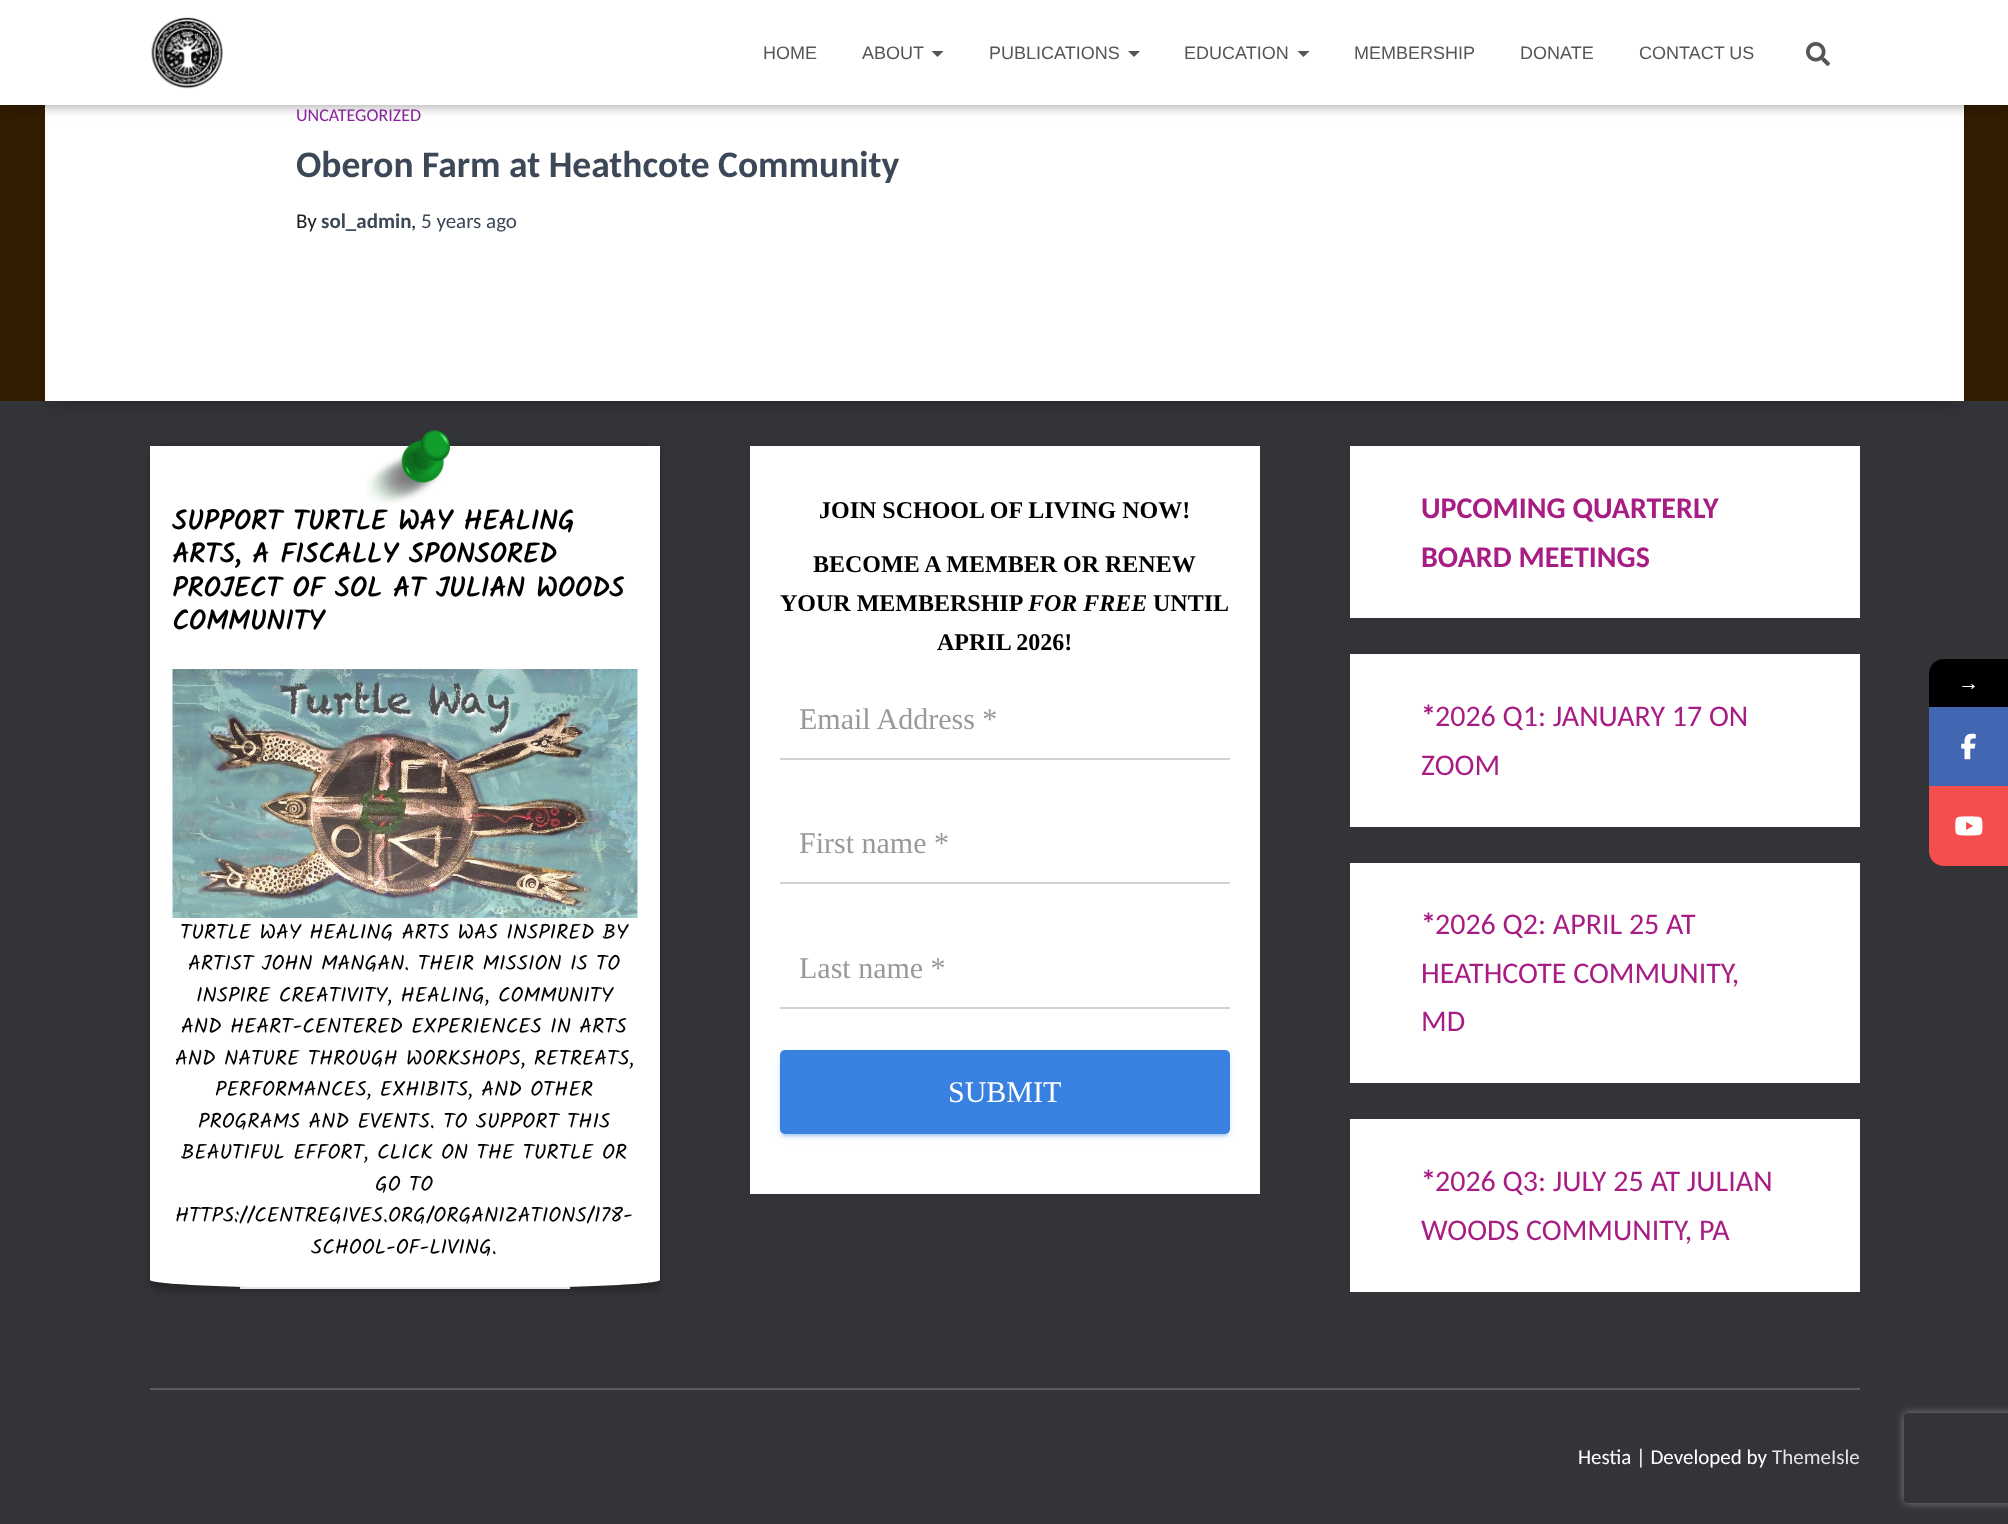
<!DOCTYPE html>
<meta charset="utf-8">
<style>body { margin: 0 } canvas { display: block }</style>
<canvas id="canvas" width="2008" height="1524"></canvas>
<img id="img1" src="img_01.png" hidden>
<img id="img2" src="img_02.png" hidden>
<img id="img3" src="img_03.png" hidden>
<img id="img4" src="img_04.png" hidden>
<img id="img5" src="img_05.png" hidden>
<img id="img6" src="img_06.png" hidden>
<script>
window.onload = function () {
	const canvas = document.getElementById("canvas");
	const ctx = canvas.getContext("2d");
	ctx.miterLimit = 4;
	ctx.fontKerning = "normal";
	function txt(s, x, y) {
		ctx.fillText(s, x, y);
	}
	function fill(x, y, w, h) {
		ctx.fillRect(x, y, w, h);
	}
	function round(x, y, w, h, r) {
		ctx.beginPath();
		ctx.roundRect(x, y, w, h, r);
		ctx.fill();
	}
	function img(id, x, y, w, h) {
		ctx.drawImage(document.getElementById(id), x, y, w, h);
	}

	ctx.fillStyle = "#331D00";
	fill(0, 0, 2008, 1524);
	ctx.fillStyle = "#323437";
	fill(0, 401, 2008, 1123);
	ctx.fillStyle = "rgba(0, 0, 0, 0.2)";
	ctx.filter = "blur(7.5px)";
	ctx.beginPath();
	ctx.roundRect(53, -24, 1903, 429, 1.5);
	ctx.fill();
	ctx.filter = "none";
	ctx.fillStyle = "#FFFFFF";
	fill(45, 105, 1919, 296);
	ctx.fillStyle = "rgba(0, 0, 0, 0.1)";
	ctx.filter = "blur(4px)";
	ctx.beginPath();
	ctx.rect(3, 9, 2003, 99);
	ctx.fill();
	ctx.filter = "none";
	ctx.fillStyle = "rgba(0, 0, 0, 0.12)";
	ctx.filter = "blur(7.5px)";
	ctx.beginPath();
	ctx.rect(0, 2, 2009, 105);
	ctx.fill();
	ctx.filter = "none";
	ctx.fillStyle = "rgba(0, 0, 0, 0.42)";
	ctx.filter = "blur(7.5px)";
	ctx.beginPath();
	ctx.rect(9, 11, 1991, 87);
	ctx.fill();
	ctx.filter = "none";
	ctx.fillStyle = "#FFFFFF";
	fill(0, 0, 2008, 105);
	img("img1", 151, 17, 72, 72);
	ctx.fillStyle = "#555555";
	ctx.beginPath();
	ctx.moveTo(931.5, 51);
	ctx.lineTo(943.5, 51);
	ctx.lineTo(937.5, 57);
	ctx.closePath();
	ctx.fill();
	ctx.beginPath();
	ctx.moveTo(1128, 51);
	ctx.lineTo(1140, 51);
	ctx.lineTo(1134, 57);
	ctx.closePath();
	ctx.fill();
	ctx.beginPath();
	ctx.moveTo(1297.5, 51);
	ctx.lineTo(1309.5, 51);
	ctx.lineTo(1303.5, 57);
	ctx.closePath();
	ctx.fill();
	img("img2", 1806, 42, 24, 24);
	ctx.fillStyle = "rgba(0, 0, 0, 0.27)";
	ctx.filter = "blur(3px)";
	ctx.beginPath();
	ctx.roundRect(150, 447, 510, 843, 9);
	ctx.fill();
	ctx.filter = "none";
	ctx.fillStyle = "#FFFFFF";
	ctx.beginPath();
	ctx.moveTo(150, 446);
	ctx.lineTo(660, 446);
	ctx.lineTo(660, 1280);
	ctx.bezierCurveTo(660, 1284, 579, 1288, 480, 1288);
	ctx.lineTo(330, 1288);
	ctx.bezierCurveTo(231, 1288, 150, 1284, 150, 1280);
	ctx.closePath();
	ctx.fill();
	ctx.fillStyle = "#E6E6E6";
	fill(240, 1287, 330, 2);
	img("img3", 366, 430, 84, 74);
	img("img4", 172, 669, 466, 249);
	ctx.fillStyle = "#FFFFFF";
	fill(750, 446, 510, 748);
	ctx.fillStyle = "#D2D2D2";
	fill(780, 758, 450, 2);
	fill(780, 882, 450, 2);
	fill(780, 1007, 450, 2);
	ctx.fillStyle = "rgba(56, 129, 224, 0.12)";
	ctx.filter = "blur(4px)";
	ctx.beginPath();
	ctx.roundRect(780, 1052, 450, 84, 5);
	ctx.fill();
	ctx.filter = "none";
	ctx.fillStyle = "rgba(56, 129, 224, 0.2)";
	ctx.filter = "blur(1px)";
	ctx.beginPath();
	ctx.roundRect(783, 1058, 444, 78, 1.5);
	ctx.fill();
	ctx.filter = "none";
	ctx.fillStyle = "rgba(56, 129, 224, 0.14)";
	ctx.filter = "blur(1.5px)";
	ctx.beginPath();
	ctx.roundRect(780, 1053, 450, 84, 5);
	ctx.fill();
	ctx.filter = "none";
	ctx.fillStyle = "#3881E0";
	round(780, 1050, 450, 84, 5);
	ctx.save();
	ctx.beginPath();
	ctx.moveTo(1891, 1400);
	ctx.lineTo(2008, 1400);
	ctx.lineTo(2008, 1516);
	ctx.lineTo(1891, 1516);
	ctx.closePath();
	ctx.moveTo(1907, 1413);
	ctx.lineTo(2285, 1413);
	ctx.bezierCurveTo(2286.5, 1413, 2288, 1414.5, 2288, 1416);
	ctx.lineTo(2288, 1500);
	ctx.bezierCurveTo(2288, 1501.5, 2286.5, 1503, 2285, 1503);
	ctx.lineTo(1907, 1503);
	ctx.bezierCurveTo(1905.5, 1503, 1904, 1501.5, 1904, 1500);
	ctx.lineTo(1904, 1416);
	ctx.bezierCurveTo(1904, 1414.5, 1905.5, 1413, 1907, 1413);
	ctx.closePath();
	ctx.clip("evenodd");
	ctx.fillStyle = "#808080";
	ctx.filter = "blur(4px)";
	ctx.beginPath();
	ctx.roundRect(1904, 1413, 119, 90, 3);
	ctx.fill();
	ctx.filter = "none";
	ctx.restore();
	ctx.fillStyle = "#FFFFFF";
	fill(1350, 446, 510, 172);
	fill(1350, 654, 510, 173);
	fill(1350, 863, 510, 220);
	fill(1350, 1119, 510, 173);
	ctx.fillStyle = "#5B5D5F";
	fill(150, 1388, 1710, 2);
	ctx.fillStyle = "#000000";
	ctx.beginPath();
	ctx.moveTo(1944, 659);
	ctx.lineTo(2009, 659);
	ctx.lineTo(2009, 707);
	ctx.lineTo(1929, 707);
	ctx.lineTo(1929, 674);
	ctx.bezierCurveTo(1929, 665.5, 1935.5, 659, 1944, 659);
	ctx.closePath();
	ctx.fill();
	ctx.fillStyle = "#4267B2";
	fill(1929, 707, 79, 79);
	img("img5", 1961, 733, 15, 27);
	ctx.fillStyle = "#F54E4E";
	ctx.beginPath();
	ctx.moveTo(1929, 786);
	ctx.lineTo(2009, 786);
	ctx.lineTo(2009, 866);
	ctx.lineTo(1944, 866);
	ctx.bezierCurveTo(1935.5, 866, 1929, 859.5, 1929, 851);
	ctx.closePath();
	ctx.fill();
	img("img6", 1955, 816, 28, 20);
	ctx.font = "18px Liberation Sans";
	ctx.fillStyle = "#555555";
	txt("HOME", 763, 59);
	txt("ABOUT", 862, 59);
	txt("PUBLICATIONS", 989, 59);
	txt("EDUCATION", 1184, 59);
	txt("MEMBERSHIP", 1354, 59);
	txt("DONATE", 1520, 59);
	txt("CONTACT US", 1639, 59);
	ctx.font = "18px Carlito";
	ctx.fillStyle = "#89229B";
	txt("UNCATEGORIZED", 296, 121);
	ctx.font = "bold 37.5px Carlito";
	ctx.fillStyle = "#3C4858";
	txt("Oberon Farm at Heathcote Community", 296, 177);
	ctx.font = "21px Carlito";
	ctx.fillStyle = "#212121";
	txt("By", 296, 228);
	ctx.font = "bold 21px Carlito";
	ctx.fillStyle = "#3C4858";
	txt("sol_admin", 321, 228);
	ctx.font = "21px Carlito";
	ctx.fillStyle = "#212121";
	txt(",", 411, 228);
	ctx.fillStyle = "#3C4858";
	txt("5 years ago", 421, 228);
	ctx.font = "bold 27.75px Kalam";
	ctx.fillStyle = "#000000";
	txt("SUPPORT TURTLE WAY HEALING", 172, 530);
	txt("ARTS, A FISCALLY SPONSORED", 172, 563);
	txt("PROJECT OF SOL AT JULIAN WOODS", 172, 597);
	txt("COMMUNITY", 172, 630);
	ctx.font = "21px Kalam";
	txt("TURTLE WAY HEALING ARTS WAS INSPIRED BY", 180, 939);
	txt("ARTIST JOHN MANGAN. THEIR MISSION IS TO", 188, 970);
	txt("INSPIRE CREATIVITY, HEALING, COMMUNITY", 196, 1002);
	txt("AND HEART-CENTERED EXPERIENCES IN ARTS", 181, 1033);
	txt("AND NATURE THROUGH WORKSHOPS, RETREATS,", 175, 1065);
	txt("PERFORMANCES, EXHIBITS, AND OTHER", 215, 1096);
	txt("PROGRAMS AND EVENTS. TO SUPPORT THIS", 198, 1128);
	txt("BEAUTIFUL EFFORT, CLICK ON THE TURTLE OR", 181, 1159);
	txt("GO TO", 375, 1191);
	txt("HTTPS://CENTREGIVES.ORG/ORGANIZATIONS/178-", 175, 1222);
	txt("SCHOOL-OF-LIVING.", 311, 1254);
	ctx.font = "bold 24px Liberation Serif";
	txt("JOIN SCHOOL OF LIVING NOW!", 819, 518);
	txt("BECOME A MEMBER OR RENEW", 813, 572);
	txt("YOUR MEMBERSHIP", 780, 611);
	ctx.font = "italic bold 24px Liberation Serif";
	txt("FOR FREE", 1028, 611);
	ctx.font = "bold 24px Liberation Serif";
	txt("UNTIL", 1153, 611);
	txt("APRIL 2026!", 937, 650);
	ctx.save();
	ctx.beginPath();
	ctx.rect(800, 702, 411, 35);
	ctx.clip();
	ctx.font = "30px Liberation Serif";
	ctx.fillStyle = "#999999";
	txt("Email Address *", 799, 729);
	ctx.restore();
	ctx.save();
	ctx.beginPath();
	ctx.rect(800, 827, 411, 34);
	ctx.clip();
	ctx.font = "30px Liberation Serif";
	ctx.fillStyle = "#999999";
	txt("First name *", 799, 853);
	ctx.restore();
	ctx.save();
	ctx.beginPath();
	ctx.rect(800, 951, 411, 35);
	ctx.clip();
	ctx.font = "30px Liberation Serif";
	ctx.fillStyle = "#999999";
	txt("Last name *", 799, 978);
	ctx.restore();
	ctx.font = "30px Liberation Serif";
	ctx.fillStyle = "#FFFFFF";
	txt("SUBMIT", 948, 1102);
	ctx.font = "bold 30px Carlito";
	ctx.fillStyle = "#A81D84";
	txt("UPCOMING QUARTERLY", 1421, 518);
	txt("BOARD MEETINGS", 1421, 567);
	txt("*", 1421, 726);
	ctx.font = "30px Carlito";
	txt("2026 Q1: JANUARY 17 ON", 1435, 726);
	txt("ZOOM", 1421, 775);
	ctx.font = "bold 30px Carlito";
	txt("*", 1421, 934);
	ctx.font = "30px Carlito";
	txt("2026 Q2: APRIL 25 AT", 1435, 934);
	txt("HEATHCOTE COMMUNITY,", 1421, 983);
	txt("MD", 1421, 1031);
	ctx.font = "bold 30px Carlito";
	txt("*", 1421, 1191);
	ctx.font = "30px Carlito";
	txt("2026 Q3: JULY 25 AT JULIAN", 1435, 1191);
	txt("WOODS COMMUNITY, PA", 1421, 1240);
	ctx.font = "21px Carlito";
	ctx.fillStyle = "#FFFFFF";
	txt("Hestia | Developed by", 1578, 1464);
	ctx.fillStyle = "#E2E3E3";
	txt("ThemeIsle", 1772, 1464);
	ctx.font = "21px Liberation Sans";
	ctx.fillStyle = "#FFFFFF";
	txt("→", 1958, 690);
};
</script>
